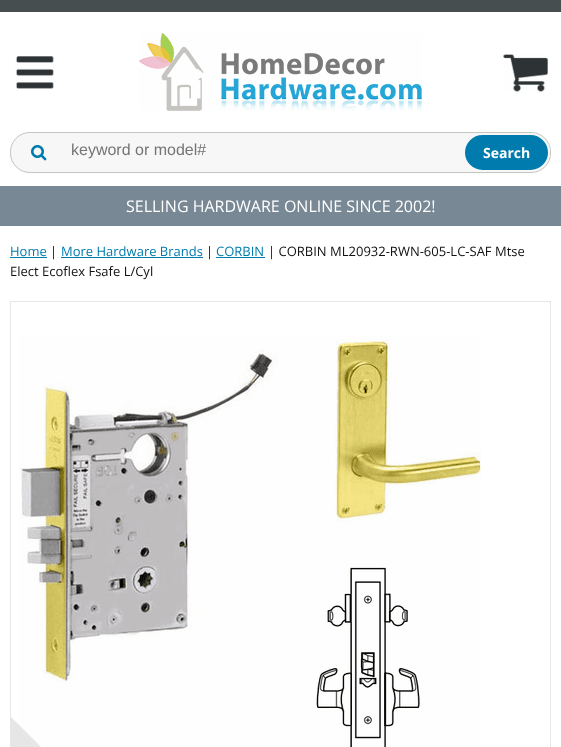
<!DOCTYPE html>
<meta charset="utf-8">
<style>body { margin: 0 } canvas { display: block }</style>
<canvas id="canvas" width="561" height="747"></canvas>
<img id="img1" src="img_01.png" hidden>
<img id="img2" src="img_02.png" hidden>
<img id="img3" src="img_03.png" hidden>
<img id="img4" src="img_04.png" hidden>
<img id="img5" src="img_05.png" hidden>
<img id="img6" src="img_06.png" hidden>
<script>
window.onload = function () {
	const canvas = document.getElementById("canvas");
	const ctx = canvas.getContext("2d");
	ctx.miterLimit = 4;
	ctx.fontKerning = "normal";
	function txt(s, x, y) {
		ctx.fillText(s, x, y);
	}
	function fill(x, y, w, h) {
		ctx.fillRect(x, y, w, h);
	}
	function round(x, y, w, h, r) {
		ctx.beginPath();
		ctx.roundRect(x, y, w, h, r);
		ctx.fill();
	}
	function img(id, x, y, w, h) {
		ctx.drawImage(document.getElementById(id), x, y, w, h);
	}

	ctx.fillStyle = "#FFFFFF";
	fill(0, 0, 561, 747);
	ctx.fillStyle = "#474E50";
	fill(0, 0, 561, 12);
	img("img1", 15, 56, 39, 33);
	img("img2", 139, 33, 283, 78);
	img("img3", 503, 54, 45, 38);
	ctx.fillStyle = "#F7F7F7";
	round(10, 132, 541, 41, 20);
	img("img4", 31, 145, 16, 16);
	ctx.beginPath();
	ctx.roundRect(10.5, 132.5, 540, 40, 19.5);
	ctx.strokeStyle = "#C4C6C1";
	ctx.stroke();
	ctx.fillStyle = "#007BAE";
	ctx.beginPath();
	ctx.roundRect(464, 134, 85, 37, 18.5);
	ctx.fill();
	ctx.strokeStyle = "#F7F7F7";
	ctx.lineWidth = 2;
	ctx.stroke();
	ctx.fillStyle = "#788895";
	fill(0, 186, 561, 40);
	ctx.fillStyle = "#007BAE";
	fill(10, 257, 37, 1);
	fill(61, 257, 142, 1);
	fill(216, 257, 49, 1);
	ctx.strokeStyle = "#E6E6E6";
	ctx.lineWidth = 1;
	ctx.strokeRect(10.5, 301.5, 540, 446);
	img("img5", 19, 336, 462, 411);
	img("img6", 11, 717, 30, 30);
	ctx.font = "16px Liberation Sans";
	ctx.fillStyle = "#757575";
	txt("keyword or model#", 71, 155);
	ctx.font = "bold 14px Open Sans";
	ctx.fillStyle = "#FFFFFF";
	txt("Search", 483, 158);
	ctx.font = "16px Open Sans";
	txt("SELLING HARDWARE ONLINE SINCE 2002!", 126, 212);
	ctx.font = "13px Open Sans";
	ctx.fillStyle = "#007BAE";
	txt("Home", 10, 256);
	ctx.fillStyle = "#111111";
	txt("|", 50, 256);
	ctx.fillStyle = "#007BAE";
	txt("More Hardware Brands", 61, 256);
	ctx.fillStyle = "#111111";
	txt("|", 206, 256);
	ctx.fillStyle = "#007BAE";
	txt("CORBIN", 216, 256);
	ctx.fillStyle = "#111111";
	txt("| CORBIN ML20932-RWN-605-LC-SAF Mtse", 268, 256);
	txt("Elect Ecoflex Fsafe L/Cyl", 10, 276);
};
</script>
